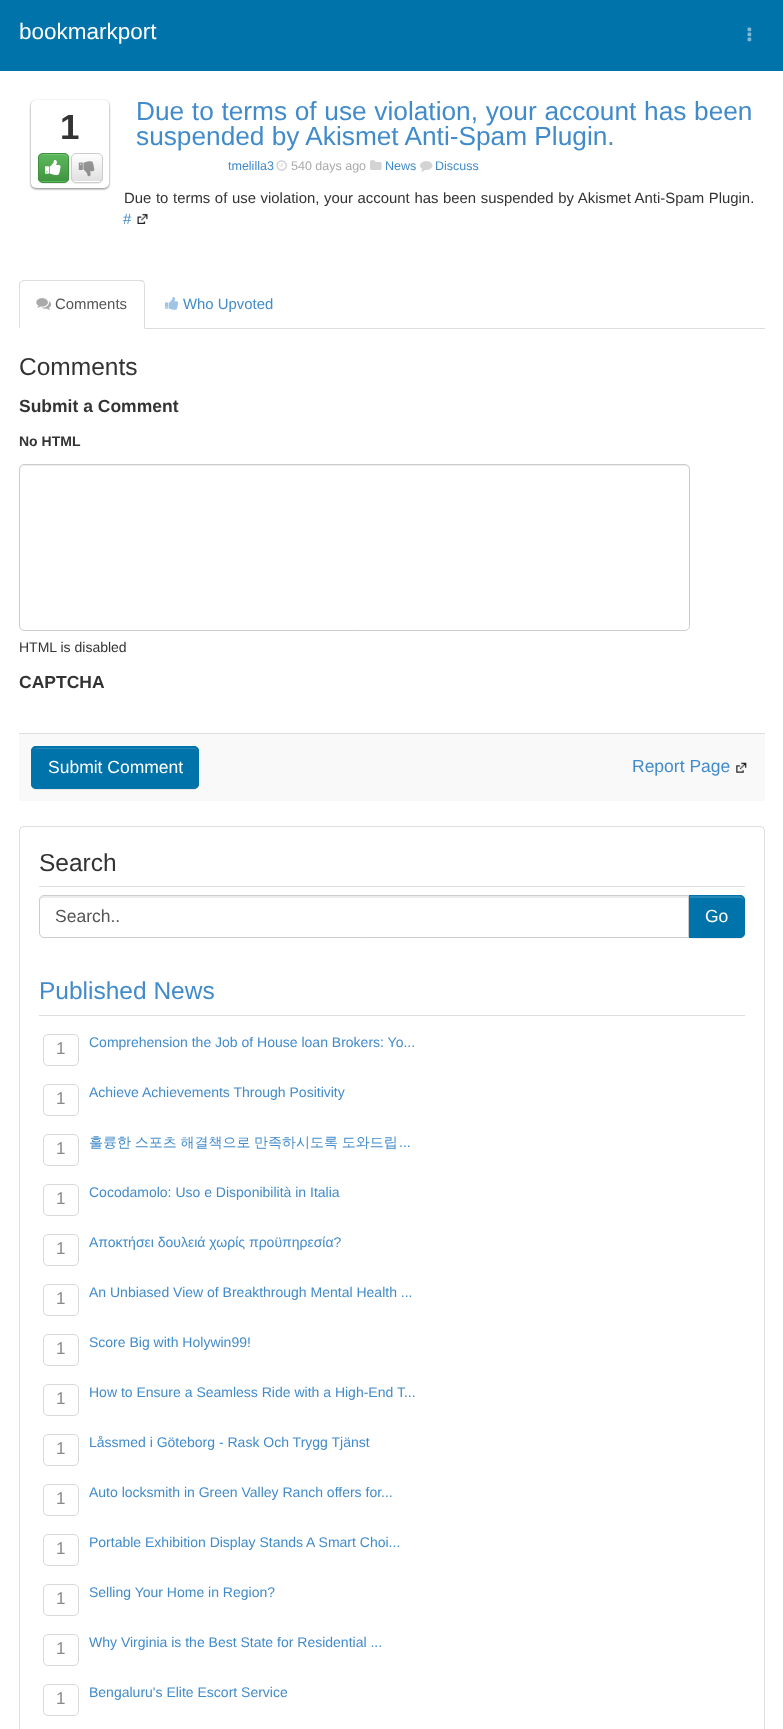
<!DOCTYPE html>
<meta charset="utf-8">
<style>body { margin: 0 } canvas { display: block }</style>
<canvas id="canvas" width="783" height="1729"></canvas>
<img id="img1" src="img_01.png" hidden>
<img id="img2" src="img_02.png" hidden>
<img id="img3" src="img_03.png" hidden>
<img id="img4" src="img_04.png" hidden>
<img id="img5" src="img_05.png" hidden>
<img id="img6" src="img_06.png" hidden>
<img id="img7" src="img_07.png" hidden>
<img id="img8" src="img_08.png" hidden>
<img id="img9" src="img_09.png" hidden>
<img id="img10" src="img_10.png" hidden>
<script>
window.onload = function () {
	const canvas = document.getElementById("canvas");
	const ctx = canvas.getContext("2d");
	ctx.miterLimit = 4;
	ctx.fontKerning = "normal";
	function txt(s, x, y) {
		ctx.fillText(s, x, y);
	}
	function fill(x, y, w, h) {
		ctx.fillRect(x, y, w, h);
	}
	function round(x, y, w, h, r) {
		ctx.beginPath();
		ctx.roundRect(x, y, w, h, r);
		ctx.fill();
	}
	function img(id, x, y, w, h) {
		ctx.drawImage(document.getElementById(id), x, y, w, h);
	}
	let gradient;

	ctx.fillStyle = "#FFFFFF";
	fill(0, 0, 783, 1729);
	ctx.fillStyle = "#0073AA";
	fill(0, 0, 783, 71);
	img("img1", 747, 27, 5, 15);
	ctx.fillStyle = "rgba(0, 0, 0, 0.5)";
	ctx.filter = "blur(1px)";
	ctx.beginPath();
	ctx.roundRect(31, 101, 78, 88, 5);
	ctx.fill();
	ctx.filter = "none";
	ctx.fillStyle = "#FFFFFF";
	round(31, 100, 78, 88, 5);
	ctx.fillStyle = "rgba(0, 0, 0, 0.07)";
	ctx.filter = "blur(0.5px)";
	ctx.beginPath();
	ctx.roundRect(38, 154, 31, 30, 5);
	ctx.fill();
	ctx.filter = "none";
	ctx.fillStyle = "#5CB85C";
	round(38, 153, 31, 30, 5);
	ctx.save();
	ctx.beginPath();
	ctx.roundRect(38, 153, 31, 30, 5);
	ctx.clip();
	gradient = ctx.createLinearGradient(53, 154, 53, 181);
	gradient.addColorStop(0, "#5CB85C");
	gradient.addColorStop(1, "#419641");
	ctx.fillStyle = gradient;
	fill(38, 154, 31, 27);
	ctx.restore();
	ctx.fillStyle = "rgba(255, 255, 255, 0.15)";
	ctx.beginPath();
	ctx.moveTo(42, 155);
	ctx.lineTo(60, 155);
	ctx.bezierCurveTo(65.5, 155, 67.5, 156.5, 68, 159.5);
	ctx.lineTo(68, 158);
	ctx.bezierCurveTo(68, 156, 66, 154, 64, 154);
	ctx.lineTo(43, 154);
	ctx.bezierCurveTo(41, 154, 39, 156, 39, 158);
	ctx.bezierCurveTo(39.5, 156, 40.5, 155, 42, 155);
	ctx.closePath();
	ctx.fill();
	ctx.beginPath();
	ctx.roundRect(38.5, 153.5, 30, 29, 4.5);
	ctx.strokeStyle = "#3E8F3E";
	ctx.stroke();
	img("img2", 45, 160, 16, 15);
	ctx.fillStyle = "rgba(0, 0, 0, 0.07)";
	ctx.filter = "blur(0.5px)";
	ctx.beginPath();
	ctx.roundRect(71, 154, 32, 30, 5);
	ctx.fill();
	ctx.filter = "none";
	ctx.fillStyle = "#FFFFFF";
	round(71, 153, 32, 30, 5);
	ctx.save();
	ctx.beginPath();
	ctx.roundRect(71, 153, 32, 30, 5);
	ctx.clip();
	gradient = ctx.createLinearGradient(87, 154, 87, 181);
	gradient.addColorStop(0, "#FFFFFF");
	gradient.addColorStop(1, "#E0E0E0");
	ctx.fillStyle = gradient;
	fill(71, 154, 32, 27);
	ctx.restore();
	ctx.beginPath();
	ctx.roundRect(71.5, 153.5, 31, 29, 4.5);
	ctx.strokeStyle = "#CCCCCC";
	ctx.stroke();
	img("img3", 78, 161, 17, 16);
	img("img4", 276, 160, 11, 11);
	img("img5", 370, 160, 12, 10);
	img("img6", 420, 161, 13, 11);
	img("img7", 137, 213, 11, 11);
	ctx.fillStyle = "#DDDDDD";
	fill(145, 328, 620, 1);
	ctx.beginPath();
	ctx.moveTo(24, 280);
	ctx.bezierCurveTo(22, 280, 21, 281, 20, 282);
	ctx.lineTo(21, 282);
	ctx.lineTo(24, 281);
	ctx.lineTo(140, 281);
	ctx.lineTo(143, 282);
	ctx.lineTo(144, 281);
	ctx.bezierCurveTo(143, 280, 142, 280, 140, 280);
	ctx.closePath();
	ctx.fill();
	ctx.beginPath();
	ctx.moveTo(145, 329);
	ctx.lineTo(145, 285);
	ctx.bezierCurveTo(145, 284, 144, 282, 144, 281);
	ctx.lineTo(143, 282);
	ctx.bezierCurveTo(144, 283, 144, 284, 144, 285);
	ctx.lineTo(144, 328);
	ctx.closePath();
	ctx.fill();
	ctx.beginPath();
	ctx.moveTo(20, 282);
	ctx.bezierCurveTo(19, 282, 19, 284, 19, 285);
	ctx.lineTo(19, 328);
	ctx.lineTo(20, 328);
	ctx.lineTo(20, 285);
	ctx.bezierCurveTo(20, 284, 20, 283, 21, 282);
	ctx.closePath();
	ctx.fill();
	img("img8", 36, 298, 16, 12);
	img("img9", 165, 297, 14, 13);
	ctx.fillStyle = "#ECECEC";
	ctx.beginPath();
	ctx.moveTo(24, 466);
	ctx.lineTo(685, 466);
	ctx.bezierCurveTo(687, 466, 689, 468, 689, 470);
	ctx.bezierCurveTo(689, 467, 688, 465, 685, 465);
	ctx.lineTo(24, 465);
	ctx.lineTo(21, 466);
	ctx.lineTo(20, 467);
	ctx.lineTo(20, 470);
	ctx.bezierCurveTo(20, 468, 22, 466, 24, 466);
	ctx.closePath();
	ctx.fill();
	ctx.beginPath();
	ctx.roundRect(19.5, 464.5, 670, 166, 4.5);
	ctx.stroke();
	ctx.fillStyle = "#F9F9F9";
	fill(19, 734, 746, 67);
	ctx.fillStyle = "#DDDDDD";
	fill(19, 733, 746, 1);
	ctx.fillStyle = "rgba(0, 0, 0, 0.07)";
	ctx.filter = "blur(0.5px)";
	ctx.beginPath();
	ctx.roundRect(31, 748, 168, 42, 5);
	ctx.fill();
	ctx.filter = "none";
	ctx.fillStyle = "#0073AA";
	round(31, 746, 168, 43, 5);
	ctx.fillStyle = "#2688B7";
	ctx.beginPath();
	ctx.moveTo(36, 749);
	ctx.lineTo(194, 749);
	ctx.bezierCurveTo(196, 749, 198, 750, 198, 752);
	ctx.bezierCurveTo(198, 750, 196, 748, 194, 748);
	ctx.lineTo(37, 748);
	ctx.bezierCurveTo(36, 748, 35, 749, 34, 749);
	ctx.closePath();
	ctx.fill();
	ctx.beginPath();
	ctx.roundRect(31.5, 746.5, 167, 42, 4.5);
	ctx.strokeStyle = "#0073AA";
	ctx.stroke();
	img("img10", 736, 762, 11, 11);
	ctx.beginPath();
	ctx.roundRect(19.5, 826.5, 745, 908, 4.5);
	ctx.strokeStyle = "#DDDDDD";
	ctx.stroke();
	ctx.fillStyle = "#DDDDDD";
	fill(39, 886, 706, 1);
	ctx.fillStyle = "rgba(0, 0, 0, 0.07)";
	ctx.filter = "blur(0.5px)";
	ctx.beginPath();
	ctx.roundRect(689, 896, 56, 43, 5);
	ctx.fill();
	ctx.filter = "none";
	ctx.fillStyle = "#ECECEC";
	ctx.beginPath();
	ctx.moveTo(44, 898);
	ctx.lineTo(688, 898);
	ctx.lineTo(688, 896);
	ctx.lineTo(44, 896);
	ctx.bezierCurveTo(42, 896, 40, 898, 40, 900);
	ctx.lineTo(40, 901);
	ctx.bezierCurveTo(40, 899, 42, 898, 44, 898);
	ctx.closePath();
	ctx.fill();
	ctx.beginPath();
	ctx.roundRect(39.5, 895.5, 649, 42, [4.5, 0, 0, 4.5]);
	ctx.strokeStyle = "#CCCCCC";
	ctx.stroke();
	ctx.fillStyle = "#0073AA";
	ctx.beginPath();
	ctx.roundRect(689, 895, 56, 43, [0, 5, 5, 0]);
	ctx.fill();
	ctx.fillStyle = "#2688B7";
	ctx.beginPath();
	ctx.moveTo(690, 898);
	ctx.lineTo(740, 898);
	ctx.bezierCurveTo(742, 898, 744, 899, 744, 901);
	ctx.lineTo(744, 900);
	ctx.bezierCurveTo(744, 898, 742, 896, 740, 896);
	ctx.lineTo(690, 896);
	ctx.closePath();
	ctx.fill();
	ctx.beginPath();
	ctx.roundRect(689.5, 895.5, 55, 42, [0, 4.5, 4.5, 0]);
	ctx.strokeStyle = "#0073AA";
	ctx.stroke();
	ctx.fillStyle = "#DDDDDD";
	fill(39, 1015, 706, 1);
	ctx.beginPath();
	ctx.roundRect(43.5, 1034.5, 35, 31, 4.5);
	ctx.strokeStyle = "#D9D9D9";
	ctx.stroke();
	ctx.beginPath();
	ctx.roundRect(43.5, 1084.5, 35, 31, 4.5);
	ctx.stroke();
	ctx.beginPath();
	ctx.roundRect(43.5, 1134.5, 35, 31, 4.5);
	ctx.stroke();
	ctx.beginPath();
	ctx.roundRect(43.5, 1184.5, 35, 31, 4.5);
	ctx.stroke();
	ctx.beginPath();
	ctx.roundRect(43.5, 1234.5, 35, 31, 4.5);
	ctx.stroke();
	ctx.beginPath();
	ctx.roundRect(43.5, 1284.5, 35, 31, 4.5);
	ctx.stroke();
	ctx.beginPath();
	ctx.roundRect(43.5, 1334.5, 35, 31, 4.5);
	ctx.stroke();
	ctx.beginPath();
	ctx.roundRect(43.5, 1384.5, 35, 31, 4.5);
	ctx.stroke();
	ctx.beginPath();
	ctx.roundRect(43.5, 1434.5, 35, 31, 4.5);
	ctx.stroke();
	ctx.beginPath();
	ctx.roundRect(43.5, 1484.5, 35, 31, 4.5);
	ctx.stroke();
	ctx.beginPath();
	ctx.roundRect(43.5, 1534.5, 35, 31, 4.5);
	ctx.stroke();
	ctx.beginPath();
	ctx.roundRect(43.5, 1584.5, 35, 31, 4.5);
	ctx.stroke();
	ctx.beginPath();
	ctx.roundRect(43.5, 1634.5, 35, 31, 4.5);
	ctx.stroke();
	ctx.beginPath();
	ctx.roundRect(43.5, 1684.5, 35, 31, 4.5);
	ctx.stroke();
	ctx.font = "22.5px Liberation Sans";
	ctx.fillStyle = "#FFFFFF";
	txt("bookmarkport", 19, 39);
	ctx.font = "bold 35px Liberation Sans";
	ctx.fillStyle = "#333333";
	txt("1", 60, 139);
	ctx.wordSpacing = "0.4px";
	ctx.font = "26.25px Liberation Sans";
	ctx.fillStyle = "#428BCA";
	txt("Due to terms of use violation, your account has been", 136, 120);
	ctx.wordSpacing = "0px";
	txt("suspended by Akismet Anti-Spam Plugin.", 136, 145);
	ctx.font = "12.5px Liberation Sans";
	txt("tmelilla3", 228, 170);
	ctx.fillStyle = "#AAAAAA";
	txt("540 days ago", 291, 170);
	ctx.fillStyle = "#428BCA";
	txt("News", 385, 170);
	txt("Discuss", 435, 170);
	ctx.wordSpacing = "0.5px";
	ctx.font = "14.9px Liberation Sans";
	ctx.fillStyle = "#333333";
	txt("Due to terms of use violation, your account has been suspended by Akismet Anti-Spam Plugin.", 124, 203);
	ctx.wordSpacing = "0px";
	ctx.fillStyle = "#428BCA";
	txt("#", 123, 224);
	ctx.fillStyle = "#555555";
	txt("Comments", 55, 309);
	ctx.fillStyle = "#428BCA";
	txt("Who Upvoted", 183, 309);
	ctx.font = "24.5px Liberation Sans";
	ctx.fillStyle = "#333333";
	txt("Comments", 19, 375);
	ctx.font = "bold 17.5px Liberation Sans";
	txt("Submit a Comment", 19, 412);
	ctx.font = "bold 14px Liberation Sans";
	txt("No HTML", 19, 446);
	ctx.font = "14px Liberation Sans";
	txt("HTML is disabled", 19, 652);
	ctx.font = "bold 17.5px Liberation Sans";
	txt("CAPTCHA", 19, 688);
	ctx.font = "17.5px Liberation Sans";
	ctx.fillStyle = "#FFFFFF";
	txt("Submit Comment", 48, 773);
	ctx.fillStyle = "#428BCA";
	txt("Report Page", 632, 772);
	ctx.font = "24.5px Liberation Sans";
	ctx.fillStyle = "#333333";
	txt("Search", 39, 871);
	ctx.font = "17.5px Liberation Sans";
	ctx.fillStyle = "#555555";
	txt("Search..", 55, 922);
	ctx.fillStyle = "#FFFFFF";
	txt("Go", 705, 922);
	ctx.font = "24.5px Liberation Sans";
	ctx.fillStyle = "#428BCA";
	txt("Published News", 39, 999);
	ctx.font = "17px Liberation Sans";
	ctx.fillStyle = "#8A8A8A";
	txt("1", 56, 1054);
	ctx.font = "14px Liberation Sans";
	ctx.fillStyle = "#428BCA";
	txt("Comprehension the Job of House loan Brokers: Yo...", 89, 1047);
	ctx.font = "17px Liberation Sans";
	ctx.fillStyle = "#8A8A8A";
	txt("1", 56, 1104);
	ctx.font = "14px Liberation Sans";
	ctx.fillStyle = "#428BCA";
	txt("Achieve Achievements Through Positivity", 89, 1097);
	ctx.font = "17px Liberation Sans";
	ctx.fillStyle = "#8A8A8A";
	txt("1", 56, 1154);
	ctx.wordSpacing = "-0.5px";
	ctx.font = "500 14px WenQuanYi Zen Hei";
	ctx.fillStyle = "#428BCA";
	txt("훌륭한 스포츠 해결책으로 만족하시도록 도와드립", 89, 1147);
	ctx.wordSpacing = "0px";
	ctx.font = "14px Liberation Sans";
	txt("...", 399, 1147);
	ctx.font = "17px Liberation Sans";
	ctx.fillStyle = "#8A8A8A";
	txt("1", 56, 1204);
	ctx.font = "14px Liberation Sans";
	ctx.fillStyle = "#428BCA";
	txt("Cocodamolo: Uso e Disponibilità in Italia", 89, 1197);
	ctx.font = "17px Liberation Sans";
	ctx.fillStyle = "#8A8A8A";
	txt("1", 56, 1254);
	ctx.font = "14px Liberation Sans";
	ctx.fillStyle = "#428BCA";
	txt("Αποκτήσει δουλειά χωρίς προϋπηρεσία?", 89, 1247);
	ctx.font = "17px Liberation Sans";
	ctx.fillStyle = "#8A8A8A";
	txt("1", 56, 1304);
	ctx.font = "14px Liberation Sans";
	ctx.fillStyle = "#428BCA";
	txt("An Unbiased View of Breakthrough Mental Health ...", 89, 1297);
	ctx.font = "17px Liberation Sans";
	ctx.fillStyle = "#8A8A8A";
	txt("1", 56, 1354);
	ctx.font = "14px Liberation Sans";
	ctx.fillStyle = "#428BCA";
	txt("Score Big with Holywin99!", 89, 1347);
	ctx.font = "17px Liberation Sans";
	ctx.fillStyle = "#8A8A8A";
	txt("1", 56, 1404);
	ctx.font = "14px Liberation Sans";
	ctx.fillStyle = "#428BCA";
	txt("How to Ensure a Seamless Ride with a High-End T...", 89, 1397);
	ctx.font = "17px Liberation Sans";
	ctx.fillStyle = "#8A8A8A";
	txt("1", 56, 1454);
	ctx.font = "14px Liberation Sans";
	ctx.fillStyle = "#428BCA";
	txt("Låssmed i Göteborg - Rask Och Trygg Tjänst", 89, 1447);
	ctx.font = "17px Liberation Sans";
	ctx.fillStyle = "#8A8A8A";
	txt("1", 56, 1504);
	ctx.font = "14px Liberation Sans";
	ctx.fillStyle = "#428BCA";
	txt("Auto locksmith in Green Valley Ranch offers for...", 89, 1497);
	ctx.font = "17px Liberation Sans";
	ctx.fillStyle = "#8A8A8A";
	txt("1", 56, 1554);
	ctx.font = "14px Liberation Sans";
	ctx.fillStyle = "#428BCA";
	txt("Portable Exhibition Display Stands A Smart Choi...", 89, 1547);
	ctx.font = "17px Liberation Sans";
	ctx.fillStyle = "#8A8A8A";
	txt("1", 56, 1604);
	ctx.font = "14px Liberation Sans";
	ctx.fillStyle = "#428BCA";
	txt("Selling Your Home in Region?", 89, 1597);
	ctx.font = "17px Liberation Sans";
	ctx.fillStyle = "#8A8A8A";
	txt("1", 56, 1654);
	ctx.font = "14px Liberation Sans";
	ctx.fillStyle = "#428BCA";
	txt("Why Virginia is the Best State for Residential ...", 89, 1647);
	ctx.font = "17px Liberation Sans";
	ctx.fillStyle = "#8A8A8A";
	txt("1", 56, 1704);
	ctx.font = "14px Liberation Sans";
	ctx.fillStyle = "#428BCA";
	txt("Bengaluru's Elite Escort Service", 89, 1697);
};
</script>
